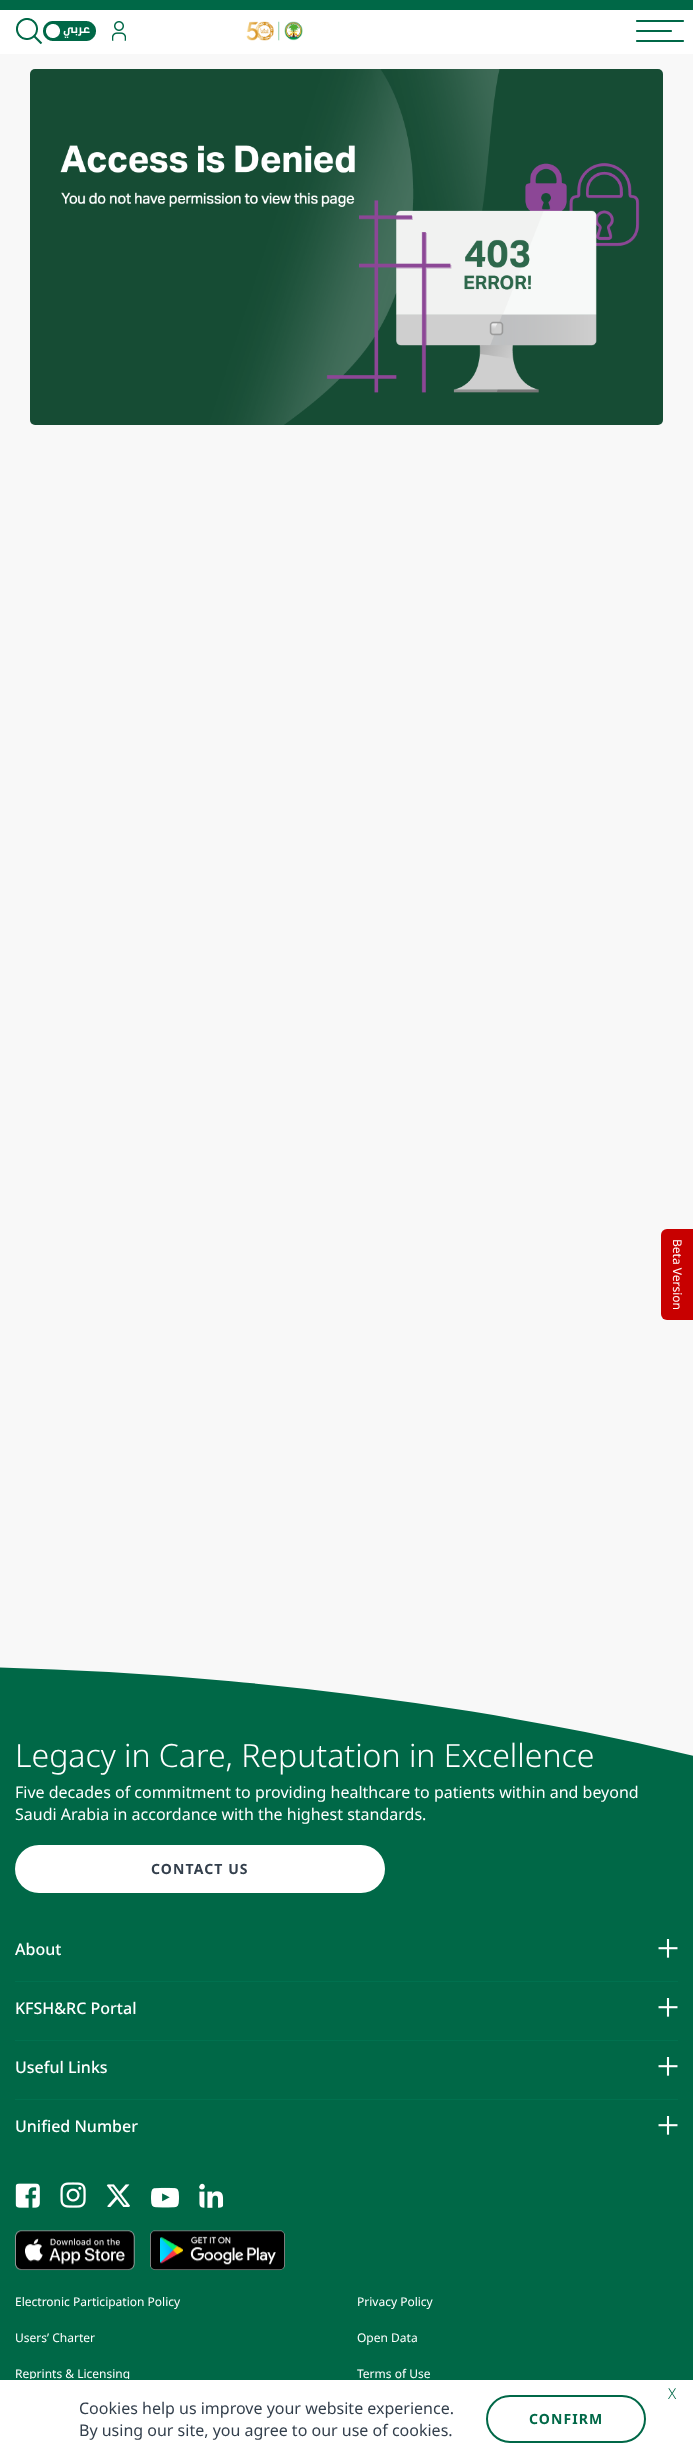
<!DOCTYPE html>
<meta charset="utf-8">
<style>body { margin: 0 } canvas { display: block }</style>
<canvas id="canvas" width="693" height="2458"></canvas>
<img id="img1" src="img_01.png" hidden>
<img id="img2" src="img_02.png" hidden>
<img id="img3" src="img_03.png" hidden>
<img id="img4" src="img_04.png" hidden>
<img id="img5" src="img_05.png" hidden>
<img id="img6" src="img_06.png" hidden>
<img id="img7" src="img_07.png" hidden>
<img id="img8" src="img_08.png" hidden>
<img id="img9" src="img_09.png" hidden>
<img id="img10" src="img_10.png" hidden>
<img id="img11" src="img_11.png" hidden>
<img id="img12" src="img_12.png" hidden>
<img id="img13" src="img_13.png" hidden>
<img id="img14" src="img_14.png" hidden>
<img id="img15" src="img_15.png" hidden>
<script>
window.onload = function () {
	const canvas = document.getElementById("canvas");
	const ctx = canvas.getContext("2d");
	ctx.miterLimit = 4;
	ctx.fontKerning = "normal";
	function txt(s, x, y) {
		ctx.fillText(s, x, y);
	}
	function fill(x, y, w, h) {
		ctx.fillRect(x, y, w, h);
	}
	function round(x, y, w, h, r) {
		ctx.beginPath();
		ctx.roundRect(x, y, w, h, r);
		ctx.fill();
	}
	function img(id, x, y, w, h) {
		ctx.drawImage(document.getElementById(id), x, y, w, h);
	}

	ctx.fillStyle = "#F8F8F8";
	fill(0, 0, 693, 2458);
	ctx.fillStyle = "#C80000";
	ctx.beginPath();
	ctx.roundRect(661, 1229, 32, 91, [6, 0, 0, 6]);
	ctx.fill();
	ctx.fillStyle = "#006847";
	fill(0, 0, 693, 10);
	ctx.fillStyle = "#FFFFFF";
	fill(0, 10, 693, 44);
	img("img1", 16, 18, 27, 27);
	img("img2", 43, 21, 53, 20);
	img("img3", 112, 21, 14, 20);
	img("img4", 246, 21, 57, 20);
	img("img5", 636, 20, 48, 22);
	img("img6", 30, 69, 633, 356);
	img("img7", 0, 1667, 693, 92);
	ctx.fillStyle = "#006847";
	fill(0, 1759, 693, 620);
	ctx.fillStyle = "#FFFFFF";
	round(15, 1845, 370, 48, 24);
	ctx.fillStyle = "#00714F";
	fill(15, 1981, 663, 1);
	img("img8", 658, 1939, 20, 19);
	fill(15, 2040, 663, 1);
	img("img8", 658, 1998, 20, 19);
	fill(15, 2099, 663, 1);
	img("img8", 658, 2057, 20, 19);
	img("img8", 658, 2116, 20, 19);
	img("img9", 15, 2183, 25, 25);
	img("img10", 60, 2182, 26, 26);
	img("img11", 106, 2184, 24, 23);
	img("img12", 151, 2187, 28, 21);
	img("img13", 199, 2183, 25, 25);
	img("img14", 15, 2230, 120, 41);
	img("img15", 150, 2230, 135, 41);
	ctx.fillStyle = "#FFFFFF";
	fill(0, 2380, 693, 78);
	ctx.beginPath();
	ctx.roundRect(487, 2396, 158, 46, 23);
	ctx.strokeStyle = "#006847";
	ctx.lineWidth = 2;
	ctx.stroke();
	ctx.font = "12px Noto Sans";
	ctx.save();
	ctx.translate(673, 1239);
	ctx.rotate(90 * Math.PI / 180);
	ctx.fillText("Beta Version", 0, 0);
	ctx.restore();
	ctx.font = "300 32px Noto Sans";
	txt("Legacy in Care, Reputation in Excellence", 15, 1767);
	ctx.font = "16px Noto Sans";
	txt("Five decades of commitment to providing healthcare to patients within and beyond", 15, 1798);
	txt("Saudi Arabia in accordance with the highest standards.", 15, 1820);
	ctx.letterSpacing = "1.1px";
	ctx.font = "bold 14px Noto Sans";
	ctx.fillStyle = "#333F4C";
	txt("CONTACT US", 151, 1874);
	ctx.letterSpacing = "0px";
	ctx.font = "500 16px Noto Sans";
	ctx.fillStyle = "#FFFFFF";
	txt("About", 15, 1955);
	txt("KFSH&RC Portal", 15, 2014);
	txt("Useful Links", 15, 2073);
	txt("Unified Number", 15, 2132);
	ctx.font = "12px Noto Sans";
	txt("Electronic Participation Policy", 15, 2306);
	txt("Privacy Policy", 357, 2306);
	txt("Users’ Charter", 15, 2342);
	txt("Open Data", 357, 2342);
	txt("Reprints & Licensing", 15, 2378);
	txt("Terms of Use", 357, 2378);
	ctx.fillStyle = "#006847";
	fill(0, 2379, 693, 1);
	ctx.letterSpacing = "3px";
	ctx.font = "300 15px Noto Sans";
	txt("X", 668, 2399);
	ctx.letterSpacing = "0px";
	ctx.font = "16px Noto Sans";
	ctx.fillStyle = "#333F4C";
	txt("Cookies help us improve your website experience.", 79, 2414);
	txt("By using our site, you agree to our use of cookies.", 79, 2436);
	ctx.letterSpacing = "1.1px";
	ctx.font = "bold 14px Noto Sans";
	ctx.fillStyle = "#006847";
	txt("CONFIRM", 529, 2424);
};
</script>
